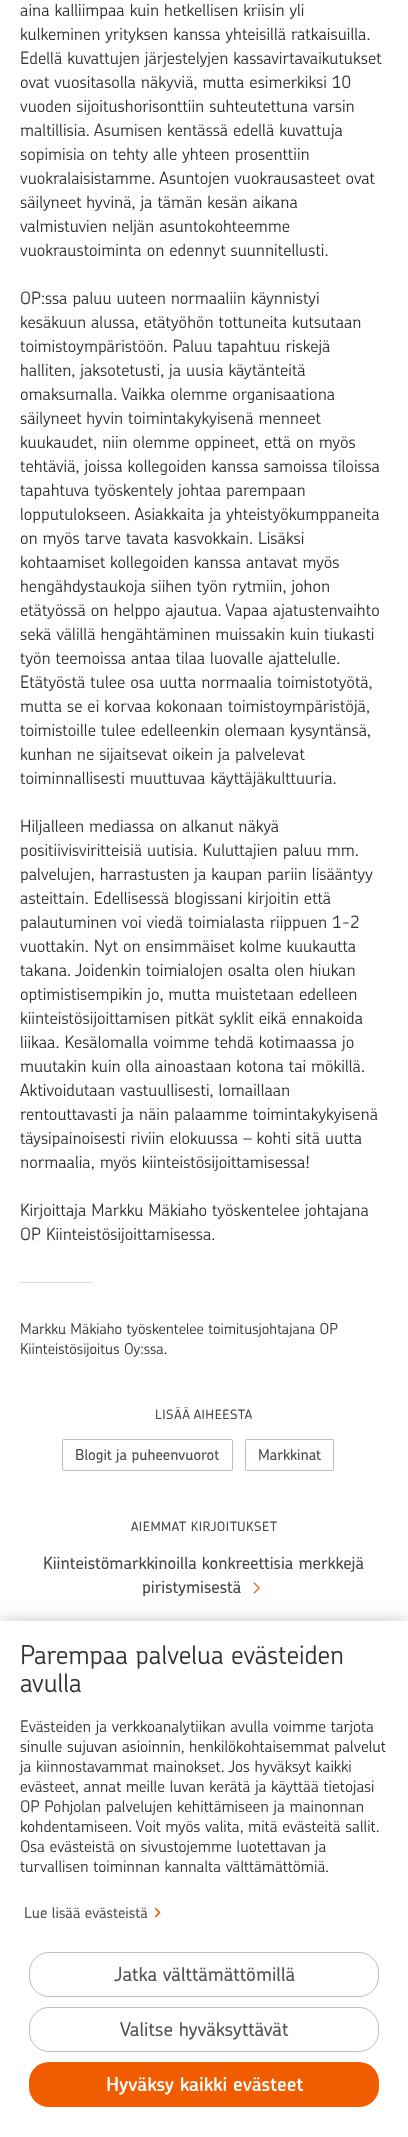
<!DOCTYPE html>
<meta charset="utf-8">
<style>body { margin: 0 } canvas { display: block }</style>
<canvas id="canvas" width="408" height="2137"></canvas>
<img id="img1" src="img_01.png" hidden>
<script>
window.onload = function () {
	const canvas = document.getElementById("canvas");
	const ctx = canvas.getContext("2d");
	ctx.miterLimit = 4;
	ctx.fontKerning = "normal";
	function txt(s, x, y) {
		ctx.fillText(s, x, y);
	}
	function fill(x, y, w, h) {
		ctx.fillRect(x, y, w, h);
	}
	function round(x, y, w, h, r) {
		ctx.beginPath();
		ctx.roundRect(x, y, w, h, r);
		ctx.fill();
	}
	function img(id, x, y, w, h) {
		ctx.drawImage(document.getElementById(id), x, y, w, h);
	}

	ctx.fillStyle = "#FFFFFF";
	fill(0, 0, 408, 2137);
	ctx.fillStyle = "#DCDCDC";
	fill(20, 1282, 72, 1);
	ctx.beginPath();
	ctx.roundRect(62.5, 1439.5, 170, 31, 1.5);
	ctx.strokeStyle = "#BEBEBE";
	ctx.stroke();
	ctx.beginPath();
	ctx.roundRect(245.5, 1439.5, 88, 31, 1.5);
	ctx.stroke();
	img("img1", 253, 1582, 7, 12);
	ctx.fillStyle = "rgba(0, 0, 0, 0.24)";
	ctx.filter = "blur(10px)";
	ctx.beginPath();
	ctx.rect(0, 1629, 408, 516);
	ctx.fill();
	ctx.filter = "none";
	ctx.fillStyle = "rgba(0, 0, 0, 0.12)";
	ctx.filter = "blur(10px)";
	ctx.beginPath();
	ctx.rect(0, 1621, 408, 516);
	ctx.fill();
	ctx.filter = "none";
	ctx.fillStyle = "#FFFFFF";
	fill(0, 1621, 408, 516);
	ctx.beginPath();
	ctx.roundRect(29.5, 1952.5, 349, 44, 19.5);
	ctx.strokeStyle = "#BDBDBD";
	ctx.stroke();
	ctx.beginPath();
	ctx.roundRect(29.5, 2007.5, 349, 44, 19.5);
	ctx.stroke();
	ctx.fillStyle = "#F15C00";
	round(29, 2062, 350, 45, 20);
	ctx.font = "300 17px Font";
	ctx.fillStyle = "#323232";
	txt("aina kalliimpaa kuin hetkellisen kriisin yli", 20, 16);
	txt("kulkeminen yrityksen kanssa yhteisillä ratkaisuilla.", 20, 40);
	txt("Edellä kuvattujen järjestelyjen kassavirtavaikutukset", 20, 64);
	txt("ovat vuositasolla näkyviä, mutta esimerkiksi 10", 20, 88);
	txt("vuoden sijoitushorisonttiin suhteutettuna varsin", 20, 112);
	txt("maltillisia. Asumisen kentässä edellä kuvattuja", 20, 136);
	txt("sopimisia on tehty alle yhteen prosenttiin", 20, 160);
	txt("vuokralaisistamme. Asuntojen vuokrausasteet ovat", 20, 184);
	txt("säilyneet hyvinä, ja tämän kesän aikana", 20, 208);
	txt("valmistuvien neljän asuntokohteemme", 20, 232);
	txt("vuokraustoiminta on edennyt suunnitellusti.", 20, 256);
	txt("OP:ssa paluu uuteen normaaliin käynnistyi", 20, 304);
	txt("kesäkuun alussa, etätyöhön tottuneita kutsutaan", 20, 328);
	txt("toimistoympäristöön. Paluu tapahtuu riskejä", 20, 352);
	txt("halliten, jaksotetusti, ja uusia käytänteitä", 20, 376);
	txt("omaksumalla. Vaikka olemme organisaationa", 20, 400);
	txt("säilyneet hyvin toimintakykyisenä menneet", 20, 424);
	txt("kuukaudet, niin olemme oppineet, että on myös", 20, 448);
	txt("tehtäviä, joissa kollegoiden kanssa samoissa tiloissa", 20, 472);
	txt("tapahtuva työskentely johtaa parempaan", 20, 496);
	txt("lopputulokseen. Asiakkaita ja yhteistyökumppaneita", 20, 520);
	txt("on myös tarve tavata kasvokkain. Lisäksi", 20, 544);
	txt("kohtaamiset kollegoiden kanssa antavat myös", 20, 568);
	txt("hengähdystaukoja siihen työn rytmiin, johon", 20, 592);
	txt("etätyössä on helppo ajautua. Vapaa ajatustenvaihto", 20, 616);
	txt("sekä välillä hengähtäminen muissakin kuin tiukasti", 20, 640);
	txt("työn teemoissa antaa tilaa luovalle ajattelulle.", 20, 664);
	txt("Etätyöstä tulee osa uutta normaalia toimistotyötä,", 20, 688);
	txt("mutta se ei korvaa kokonaan toimistoympäristöjä,", 20, 712);
	txt("toimistoille tulee edelleenkin olemaan kysyntänsä,", 20, 736);
	txt("kunhan ne sijaitsevat oikein ja palvelevat", 20, 760);
	txt("toiminnallisesti muuttuvaa käyttäjäkulttuuria.", 20, 784);
	txt("Hiljalleen mediassa on alkanut näkyä", 20, 832);
	txt("positiivisviritteisiä uutisia. Kuluttajien paluu mm.", 20, 856);
	txt("palvelujen, harrastusten ja kaupan pariin lisääntyy", 20, 880);
	txt("asteittain. Edellisessä blogissani kirjoitin että", 20, 904);
	txt("palautuminen voi viedä toimialasta riippuen 1-2", 20, 928);
	txt("vuottakin. Nyt on ensimmäiset kolme kuukautta", 20, 952);
	txt("takana. Joidenkin toimialojen osalta olen hiukan", 20, 976);
	txt("optimistisempikin jo, mutta muistetaan edelleen", 20, 1000);
	txt("kiinteistösijoittamisen pitkät syklit eikä ennakoida", 20, 1024);
	txt("liikaa. Kesälomalla voimme tehdä kotimaassa jo", 20, 1048);
	txt("muutakin kuin olla ainoastaan kotona tai mökillä.", 20, 1072);
	txt("Aktivoidutaan vastuullisesti, lomaillaan", 20, 1096);
	txt("rentouttavasti ja näin palaamme toimintakykyisenä", 20, 1120);
	txt("täysipainoisesti riviin elokuussa – kohti sitä uutta", 20, 1144);
	txt("normaalia, myös kiinteistösijoittamisessa!", 20, 1168);
	txt("Kirjoittaja Markku Mäkiaho työskentelee johtajana", 20, 1216);
	txt("OP Kiinteistösijoittamisessa.", 20, 1240);
	ctx.font = "300 15px Font";
	txt("Markku Mäkiaho työskentelee toimitusjohtajana OP", 20, 1334);
	txt("Kiinteistösijoitus Oy:ssa.", 20, 1354);
	ctx.letterSpacing = "0.5px";
	ctx.font = "500 13px Font";
	ctx.fillStyle = "#484848";
	txt("LISÄÄ AIHEESTA", 155, 1419);
	ctx.letterSpacing = "0px";
	ctx.font = "500 15px Font";
	txt("Blogit ja puheenvuorot", 75, 1460);
	txt("Markkinat", 258, 1460);
	ctx.letterSpacing = "0.5px";
	ctx.font = "500 13px Font";
	txt("AIEMMAT KIRJOITUKSET", 131, 1531);
	ctx.letterSpacing = "0px";
	ctx.font = "500 17px Font";
	txt("Kiinteistömarkkinoilla konkreettisia merkkejä", 43, 1569);
	txt("piristymisestä", 142, 1593);
	ctx.letterSpacing = "-0.1px";
	ctx.font = "300 26px Font";
	ctx.fillStyle = "#323232";
	txt("Parempaa palvelua evästeiden", 20, 1664);
	txt("avulla", 20, 1692);
	ctx.letterSpacing = "0px";
	ctx.font = "300 16px Font";
	txt("Evästeiden ja verkkoanalytiikan avulla voimme tarjota", 20, 1732);
	txt("sinulle sujuvan asioinnin, henkilökohtaisemmat palvelut", 20, 1752);
	txt("ja kiinnostavammat mainokset. Jos hyväksyt kaikki", 20, 1772);
	txt("evästeet, annat meille luvan kerätä ja käyttää tietojasi", 20, 1792);
	txt("OP Pohjolan palvelujen kehittämiseen ja mainonnan", 20, 1812);
	txt("kohdentamiseen. Voit myös valita, mitä evästeitä sallit.", 20, 1832);
	txt("Osa evästeistä on sivustojemme luotettavan ja", 20, 1852);
	txt("turvallisen toiminnan kannalta välttämättömiä.", 20, 1872);
	ctx.font = "500 15px Font";
	ctx.fillStyle = "#545454";
	txt("Lue lisää evästeistä", 24, 1918);
	ctx.font = "500 20px Font";
	ctx.fillStyle = "#F15C00";
	txt("›", 154, 1918);
	ctx.font = "500 19.25px Font";
	ctx.fillStyle = "#545454";
	txt("Jatka välttämättömillä", 114, 1981);
	txt("Valitse hyväksyttävät", 120, 2036);
	ctx.font = "600 19.25px Font";
	ctx.fillStyle = "#FFFFFF";
	txt("Hyväksy kaikki evästeet", 106, 2091);
};
</script>
